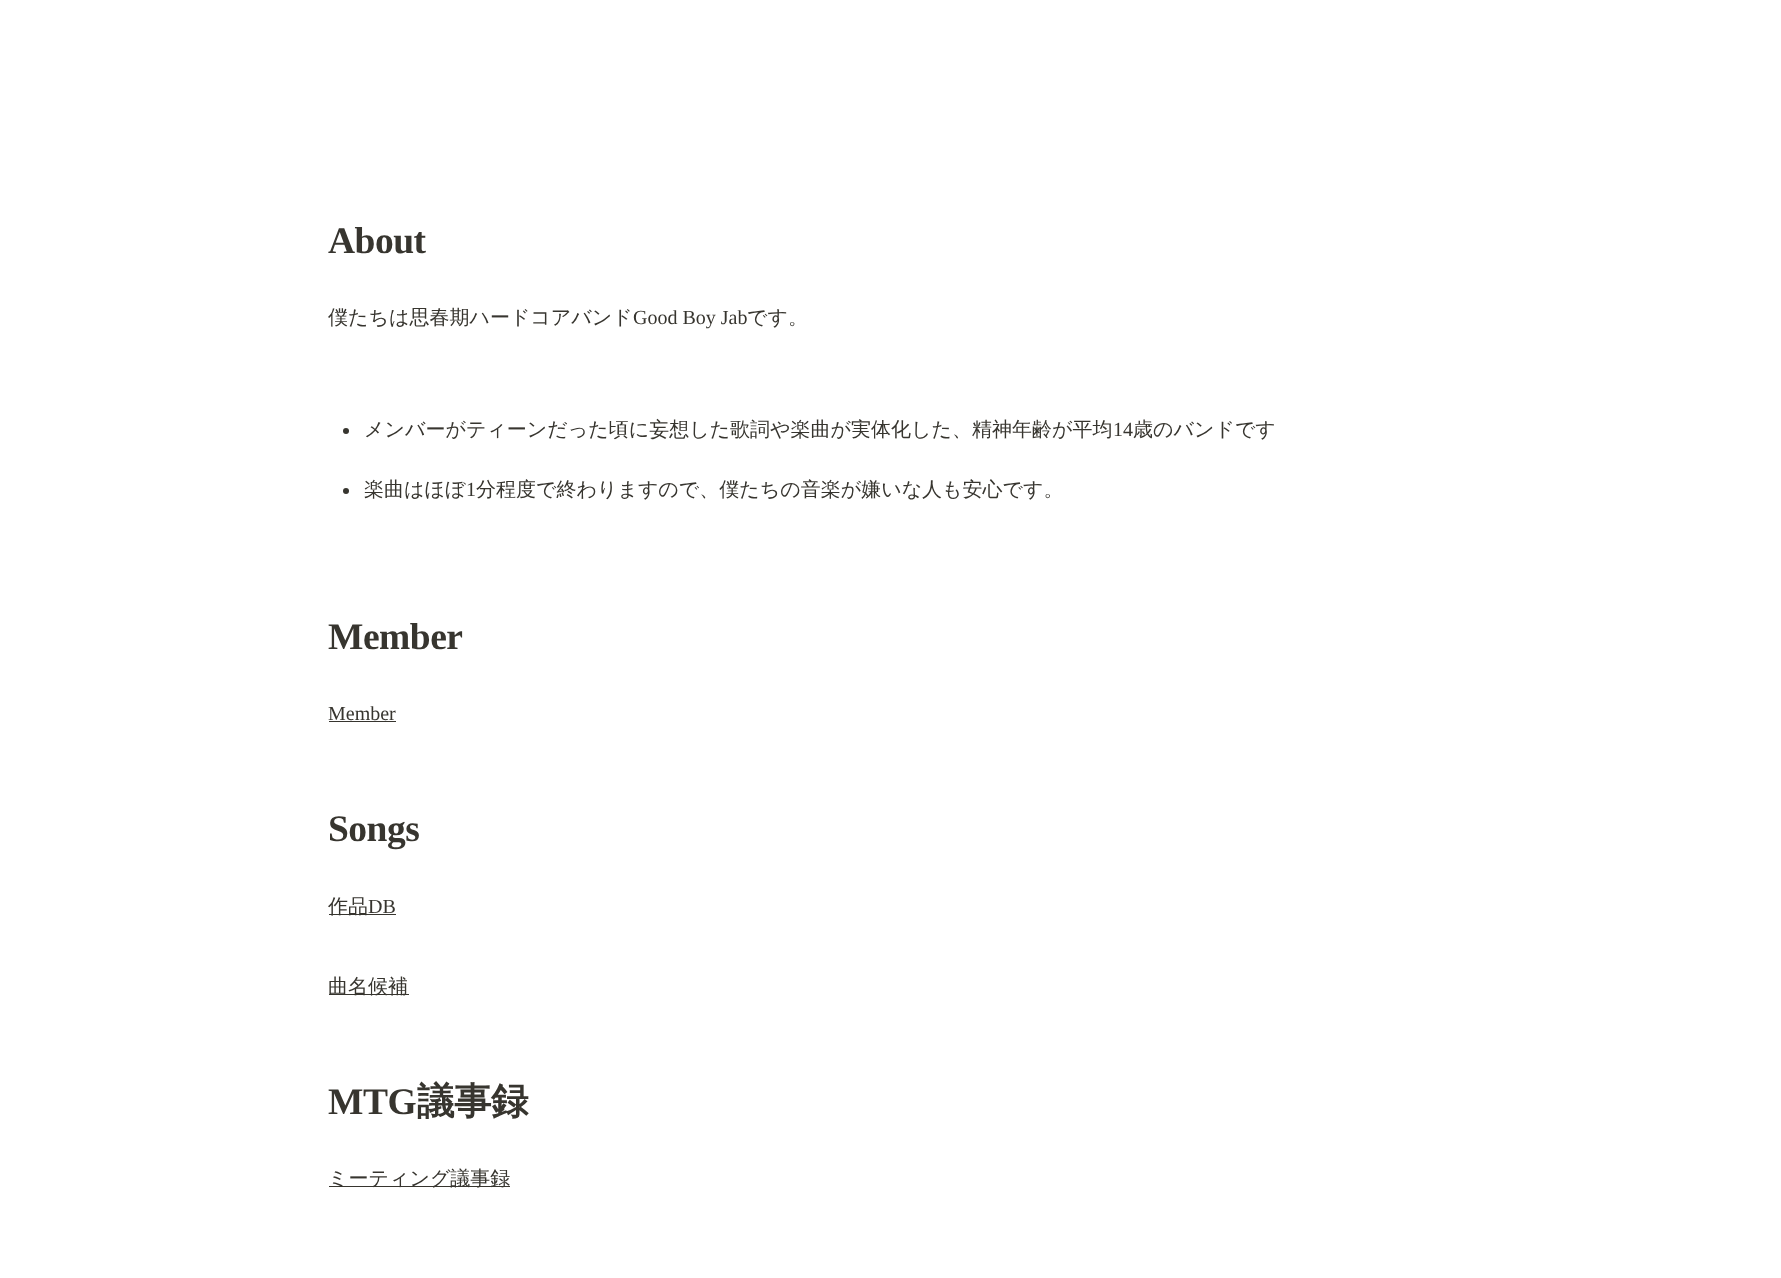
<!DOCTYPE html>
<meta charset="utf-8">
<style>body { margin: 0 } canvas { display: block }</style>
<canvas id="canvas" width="1781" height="1278"></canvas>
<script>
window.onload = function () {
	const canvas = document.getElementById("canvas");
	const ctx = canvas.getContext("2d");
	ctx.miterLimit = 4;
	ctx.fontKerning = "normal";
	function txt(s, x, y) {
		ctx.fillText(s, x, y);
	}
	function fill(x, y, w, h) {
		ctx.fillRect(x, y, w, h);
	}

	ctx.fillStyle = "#FFFFFF";
	fill(0, 0, 1781, 1278);
	ctx.fillStyle = "#37352F";
	ctx.beginPath();
	ctx.arc(346, 431, 3, 0, Math.PI * 2);
	ctx.fill();
	ctx.beginPath();
	ctx.arc(346, 491, 3, 0, Math.PI * 2);
	ctx.fill();
	fill(329, 721, 67, 1);
	fill(329, 914, 67, 1);
	fill(329, 994, 80, 1);
	fill(329, 1186, 181, 1);
	ctx.letterSpacing = "-0.5px";
	ctx.font = "bold 37.5px Liberation Serif";
	txt("About", 328, 253);
	ctx.letterSpacing = "0px";
	ctx.font = "500 20px WenQuanYi Zen Hei";
	txt("僕たちは思春期ハードコアバンド", 328, 324);
	ctx.font = "20px Liberation Serif";
	txt("Good Boy Jab", 633, 324);
	ctx.font = "500 20px WenQuanYi Zen Hei";
	txt("です。", 747, 324);
	txt("メンバーがティーンだった頃に妄想した歌詞や楽曲が実体化した、精神年齢が平均", 364, 436);
	ctx.font = "20px Liberation Serif";
	txt("14", 1113, 436);
	ctx.font = "500 20px WenQuanYi Zen Hei";
	txt("歳のバンドです", 1133, 436);
	txt("楽曲はほぼ", 364, 496);
	ctx.font = "20px Liberation Serif";
	txt("1", 466, 496);
	ctx.font = "500 20px WenQuanYi Zen Hei";
	txt("分程度で終わりますので、僕たちの音楽が嫌いな人も安心です。", 476, 496);
	ctx.letterSpacing = "-0.5px";
	ctx.font = "bold 37.5px Liberation Serif";
	txt("Member", 328, 649);
	ctx.letterSpacing = "0px";
	ctx.font = "20px Liberation Serif";
	txt("Member", 328, 720);
	ctx.letterSpacing = "-0.5px";
	ctx.font = "bold 37.5px Liberation Serif";
	txt("Songs", 328, 841);
	ctx.letterSpacing = "0px";
	ctx.font = "500 20px WenQuanYi Zen Hei";
	txt("作品", 328, 913);
	ctx.font = "20px Liberation Serif";
	txt("DB", 368, 913);
	ctx.font = "500 20px WenQuanYi Zen Hei";
	txt("曲名候補", 328, 993);
	ctx.letterSpacing = "-0.5px";
	ctx.font = "bold 37.5px Liberation Serif";
	txt("MTG", 328, 1114);
	ctx.font = "bold 37.5px WenQuanYi Zen Hei";
	txt("議事録", 417, 1114);
	ctx.letterSpacing = "0px";
	ctx.font = "500 20px WenQuanYi Zen Hei";
	txt("ミーティング議事録", 328, 1185);
};
</script>
